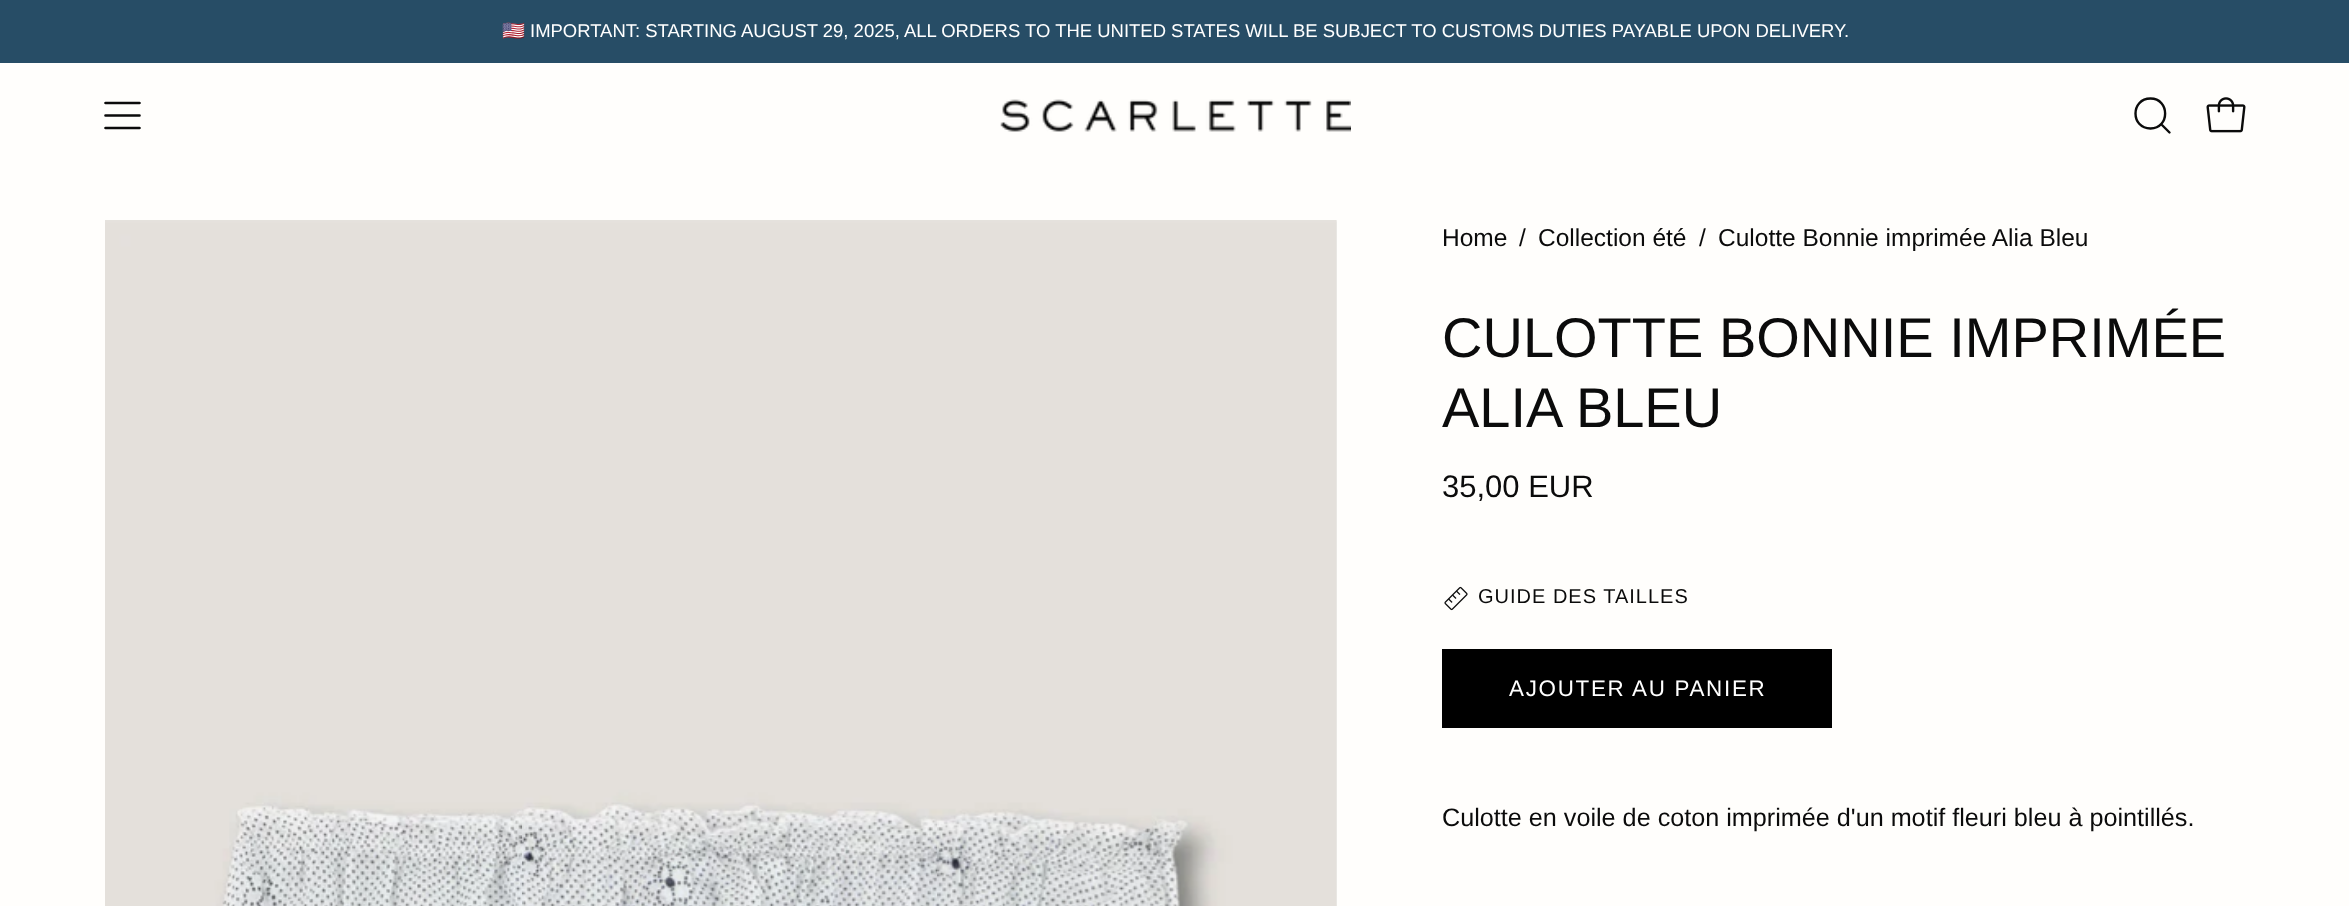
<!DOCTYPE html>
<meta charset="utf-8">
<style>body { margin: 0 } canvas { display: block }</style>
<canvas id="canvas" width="2349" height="906"></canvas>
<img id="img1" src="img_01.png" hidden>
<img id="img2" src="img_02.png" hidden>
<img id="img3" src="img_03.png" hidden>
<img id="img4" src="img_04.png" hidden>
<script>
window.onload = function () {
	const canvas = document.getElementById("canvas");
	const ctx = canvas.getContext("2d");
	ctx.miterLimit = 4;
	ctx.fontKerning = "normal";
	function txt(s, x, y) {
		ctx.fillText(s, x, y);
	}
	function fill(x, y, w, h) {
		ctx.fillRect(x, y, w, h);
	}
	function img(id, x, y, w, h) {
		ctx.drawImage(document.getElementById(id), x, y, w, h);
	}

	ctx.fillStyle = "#FFFEFC";
	fill(0, 0, 2349, 906);
	ctx.fillStyle = "#274D66";
	fill(0, 0, 2349, 63);
	ctx.beginPath();
	ctx.moveTo(105.5, 115.5);
	ctx.lineTo(139.5, 115.5);
	ctx.moveTo(105.5, 103);
	ctx.lineTo(139.5, 103);
	ctx.moveTo(105.5, 128);
	ctx.lineTo(139.5, 128);
	ctx.strokeStyle = "#0B0B0B";
	ctx.lineWidth = 2.6;
	ctx.lineCap = "round";
	ctx.lineJoin = "round";
	ctx.stroke();
	img("img1", 1000, 99, 351, 33);
	ctx.beginPath();
	ctx.moveTo(2150.5, 128.5);
	ctx.bezierCurveTo(2170, 128.5, 2170, 98.5, 2150.5, 98.5);
	ctx.bezierCurveTo(2130.5, 98.5, 2130.5, 128.5, 2150.5, 128.5);
	ctx.closePath();
	ctx.moveTo(2161, 124);
	ctx.lineTo(2169.5, 132.5);
	ctx.lineWidth = 2.4;
	ctx.stroke();
	img("img2", 2206, 97, 40, 36);
	ctx.fillStyle = "#F7F6F4";
	fill(105, 221, 1232, 685);
	img("img3", 105, 220, 1232, 686);
	img("img4", 1444, 586, 24, 25);
	ctx.fillStyle = "#000000";
	fill(1442, 649, 390, 79);
	ctx.font = "18.48px Noto Color Emoji";
	ctx.fillStyle = "#FFFFFF";
	txt("🇺🇸", 502, 37);
	ctx.font = "18.48px Liberation Sans";
	txt("IMPORTANT: STARTING AUGUST 29, 2025, ALL ORDERS TO THE UNITED STATES WILL BE SUBJECT TO CUSTOMS DUTIES PAYABLE UPON DELIVERY.", 530, 37);
	ctx.font = "24.5px Liberation Sans";
	ctx.fillStyle = "#0B0B0B";
	txt("Home", 1442, 246);
	txt("/", 1519, 246);
	txt("Collection été", 1538, 246);
	txt("/", 1699, 246);
	txt("Culotte Bonnie imprimée Alia Bleu", 1718, 246);
	ctx.font = "56px Liberation Sans";
	txt("CULOTTE BONNIE IMPRIMÉE", 1442, 357);
	txt("ALIA BLEU", 1442, 427);
	ctx.font = "31px Liberation Sans";
	txt("35,00 EUR", 1442, 497);
	ctx.letterSpacing = "1px";
	ctx.font = "20px Liberation Sans";
	txt("GUIDE DES TAILLES", 1478, 603);
	ctx.letterSpacing = "1.7px";
	ctx.font = "22.4px Liberation Sans";
	ctx.fillStyle = "#FFFFFF";
	txt("AJOUTER AU PANIER", 1509, 696);
	ctx.letterSpacing = "0px";
	ctx.font = "25.2px Liberation Sans";
	ctx.fillStyle = "#0B0B0B";
	txt("Culotte en voile de coton imprimée d'un motif fleuri bleu à pointillés.", 1442, 826);
};
</script>
